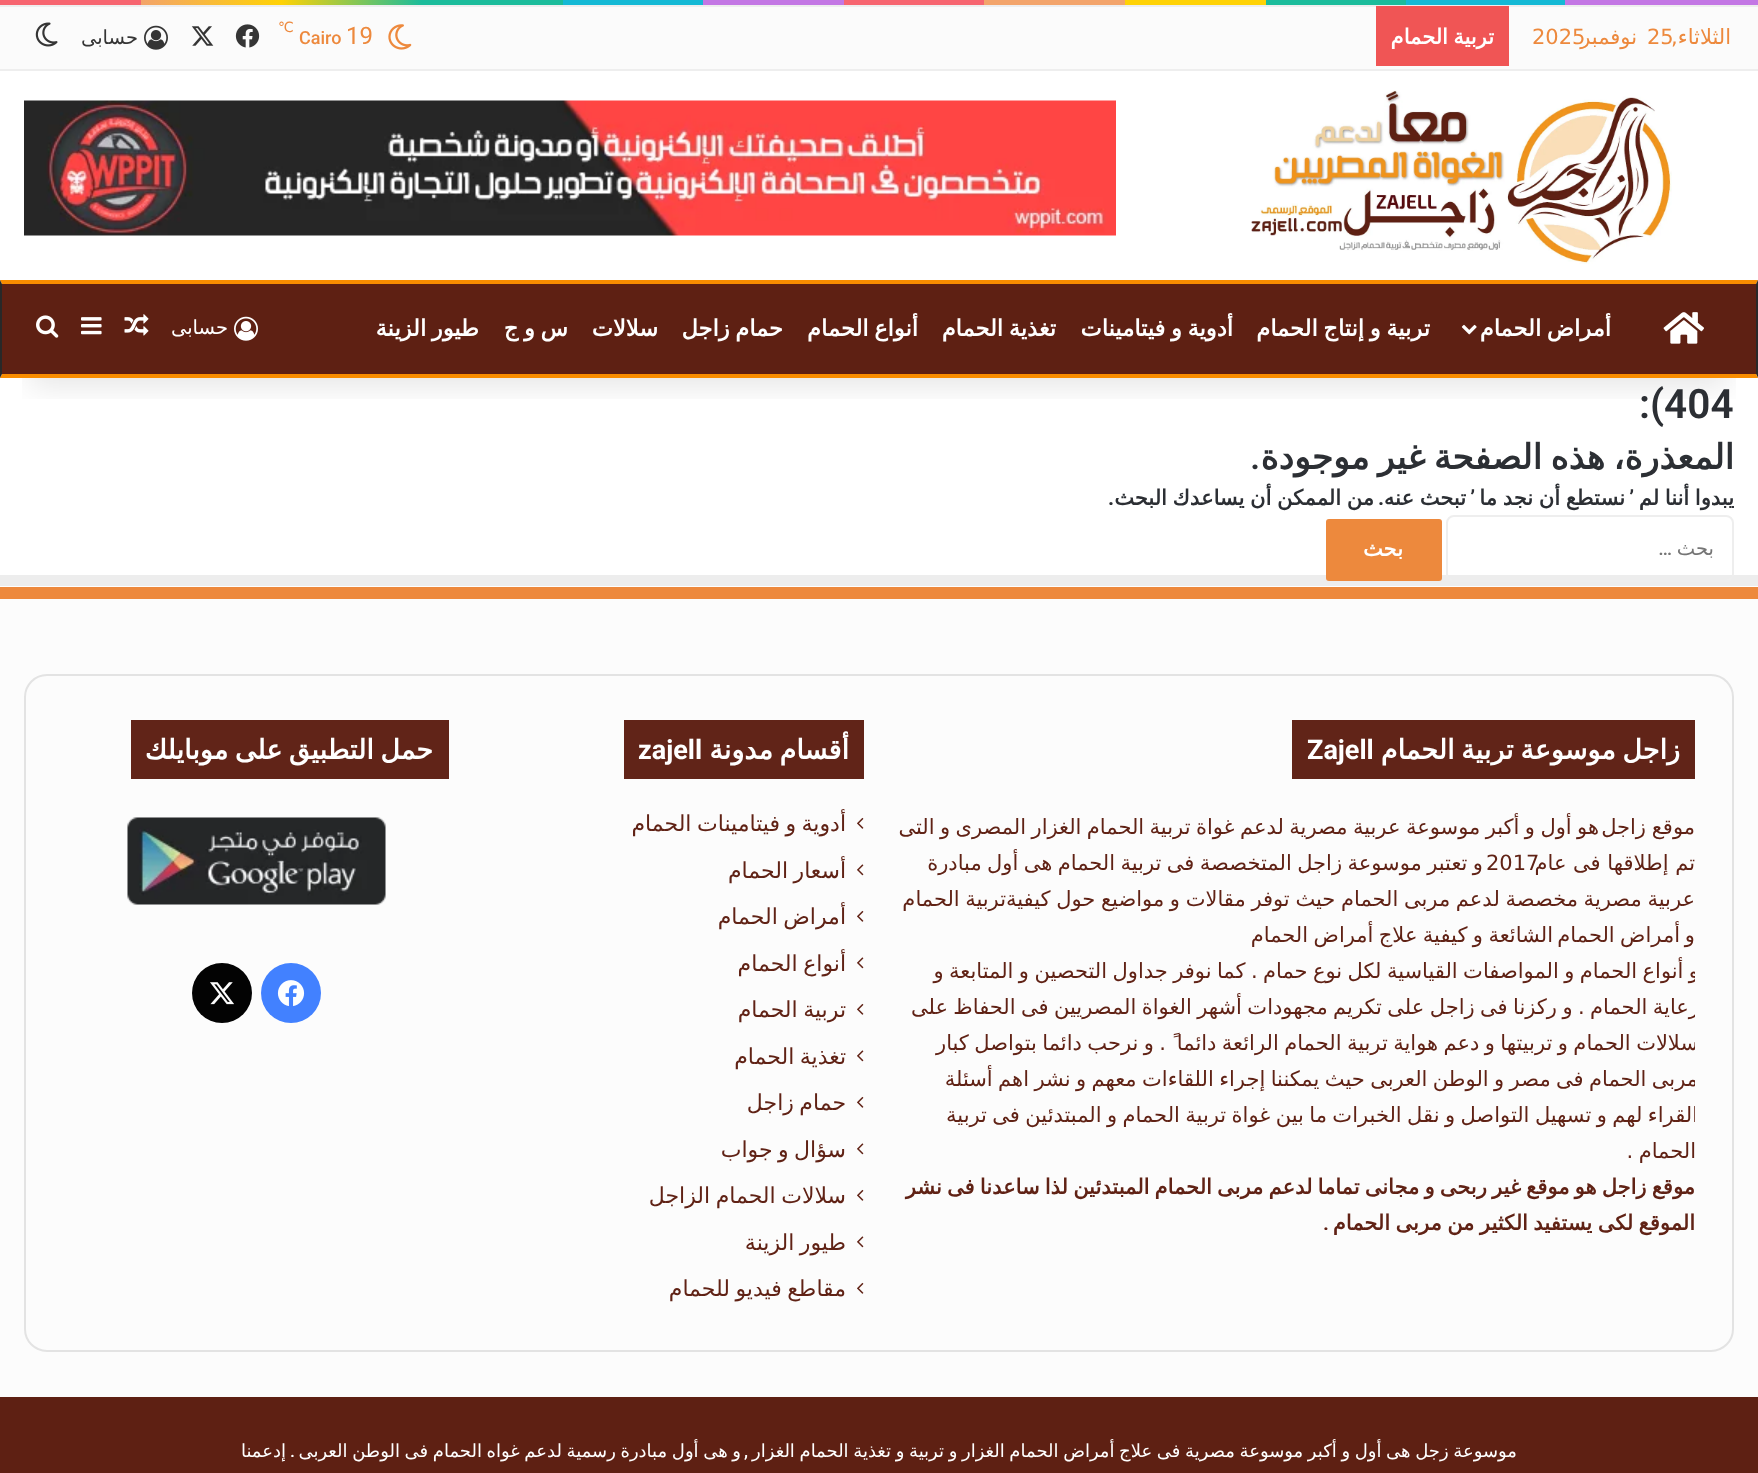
<!DOCTYPE html>
<meta charset="utf-8">
<style>body { margin: 0 } canvas { display: block }</style>
<canvas id="canvas" width="1758" height="1473"></canvas>
<img id="img1" src="img_01.png" hidden>
<img id="img2" src="img_02.png" hidden>
<img id="img3" src="img_03.png" hidden>
<img id="img4" src="img_04.png" hidden>
<img id="img5" src="img_05.png" hidden>
<img id="img6" src="img_06.png" hidden>
<img id="img7" src="img_07.png" hidden>
<img id="img8" src="img_08.png" hidden>
<img id="img9" src="img_09.png" hidden>
<img id="img10" src="img_10.png" hidden>
<img id="img11" src="img_11.png" hidden>
<img id="img12" src="img_12.png" hidden>
<img id="img13" src="img_13.png" hidden>
<img id="img14" src="img_14.png" hidden>
<img id="img15" src="img_15.png" hidden>
<img id="img16" src="img_16.png" hidden>
<img id="img17" src="img_17.png" hidden>
<img id="img18" src="img_18.png" hidden>
<script>
window.onload = function () {
	const canvas = document.getElementById("canvas");
	const ctx = canvas.getContext("2d");
	ctx.miterLimit = 4;
	ctx.fontKerning = "normal";
	function txt(s, x, y) {
		ctx.fillText(s, x, y);
	}
	function fill(x, y, w, h) {
		ctx.fillRect(x, y, w, h);
	}
	function round(x, y, w, h, r) {
		ctx.beginPath();
		ctx.roundRect(x, y, w, h, r);
		ctx.fill();
	}
	function img(id, x, y, w, h) {
		ctx.drawImage(document.getElementById(id), x, y, w, h);
	}
	let gradient;

	ctx.fillStyle = "#FFFFFF";
	fill(0, 0, 1758, 1473);
	gradient = ctx.createLinearGradient(0, 2.3, 1758, 2.2);
	gradient.addColorStop(0, "#F76570");
	gradient.addColorStop(0.08, "#F76570");
	gradient.addColorStop(0.08, "#F3A46B");
	gradient.addColorStop(0.16, "#FFD205");
	gradient.addColorStop(0.24, "#1BBC9B");
	gradient.addColorStop(0.32, "#1BBC9B");
	gradient.addColorStop(0.32, "#14B9D5");
	gradient.addColorStop(0.4, "#14B9D5");
	gradient.addColorStop(0.4, "#C377E4");
	gradient.addColorStop(0.48, "#C377E4");
	gradient.addColorStop(0.48, "#F76570");
	gradient.addColorStop(0.56, "#F76570");
	gradient.addColorStop(0.56, "#F3A46B");
	gradient.addColorStop(0.64, "#F3A46B");
	gradient.addColorStop(0.64, "#FFD205");
	gradient.addColorStop(0.72, "#FFD205");
	gradient.addColorStop(0.72, "#1BBC9B");
	gradient.addColorStop(0.8, "#1BBC9B");
	gradient.addColorStop(0.8, "#14B9D5");
	gradient.addColorStop(0.89, "#14B9D5");
	gradient.addColorStop(0.89, "#C377E4");
	gradient.addColorStop(1, "#C377E4");
	ctx.fillStyle = gradient;
	fill(0, 0, 1758, 5);
	ctx.save();
	ctx.beginPath();
	ctx.rect(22, 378, 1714, 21);
	ctx.clip();
	ctx.fillStyle = "rgba(0, 0, 0, 0.1)";
	ctx.filter = "blur(15px)";
	ctx.beginPath();
	ctx.rect(30, 72, 1698, 314);
	ctx.fill();
	ctx.filter = "none";
	ctx.restore();
	ctx.fillStyle = "#FBFBFB";
	fill(0, 7, 1758, 62);
	ctx.fillStyle = "#EEEEEE";
	fill(0, 5, 1758, 2);
	fill(0, 69, 1758, 2);
	ctx.fillStyle = "#F05555";
	fill(1376, 6, 133, 60);
	img("img1", 388, 24, 24, 26);
	img("img2", 235, 24, 25, 24);
	img("img3", 191, 26, 23, 20);
	img("img4", 144, 25, 24, 25);
	img("img5", 35, 22, 23, 25);
	img("img6", 1251, 90, 421, 174);
	img("img7", 24, 100, 1092, 136);
	ctx.fillStyle = "#5E2013";
	fill(2, 284, 1754, 90);
	ctx.fillStyle = "#F88C00";
	ctx.beginPath();
	ctx.moveTo(0, 280);
	ctx.lineTo(1758, 280);
	ctx.lineTo(1756, 284);
	ctx.lineTo(2, 284);
	ctx.closePath();
	ctx.fill();
	ctx.fillStyle = "#282828";
	ctx.beginPath();
	ctx.moveTo(1758, 280);
	ctx.lineTo(1758, 378);
	ctx.lineTo(1756, 374);
	ctx.lineTo(1756, 284);
	ctx.closePath();
	ctx.fill();
	ctx.fillStyle = "#F88C00";
	ctx.beginPath();
	ctx.moveTo(1758, 378);
	ctx.lineTo(0, 378);
	ctx.lineTo(2, 374);
	ctx.lineTo(1756, 374);
	ctx.closePath();
	ctx.fill();
	ctx.fillStyle = "#282828";
	ctx.beginPath();
	ctx.moveTo(0, 378);
	ctx.lineTo(0, 280);
	ctx.lineTo(2, 284);
	ctx.lineTo(2, 374);
	ctx.closePath();
	ctx.fill();
	img("img8", 1663, 312, 41, 32);
	img("img9", 1461, 324, 16, 11);
	img("img10", 234, 316, 24, 25);
	img("img11", 124, 314, 25, 22);
	img("img12", 81, 317, 21, 18);
	img("img13", 36, 315, 23, 23);
	ctx.fillStyle = "#EDEDED";
	fill(0, 575, 1758, 11);
	ctx.beginPath();
	ctx.roundRect(1447, 516, 286, 65, 7);
	ctx.strokeStyle = "#EEEEEE";
	ctx.lineWidth = 2;
	ctx.stroke();
	ctx.fillStyle = "#ED893D";
	round(1326, 519, 116, 62, 3);
	ctx.fillStyle = "#FCFCFC";
	fill(0, 599, 1758, 798);
	ctx.fillStyle = "#ED893D";
	fill(0, 587, 1758, 12);
	ctx.beginPath();
	ctx.roundRect(25, 675, 1708, 676, 22);
	ctx.strokeStyle = "#E3E3E3";
	ctx.stroke();
	ctx.fillStyle = "#612418";
	fill(1292, 720, 403, 59);
	fill(624, 720, 240, 59);
	img("img14", 857, 817, 7, 12);
	img("img15", 857, 864, 7, 12);
	img("img14", 857, 910, 7, 12);
	img("img15", 857, 957, 7, 12);
	img("img14", 857, 1003, 7, 12);
	img("img15", 857, 1050, 7, 12);
	img("img14", 857, 1096, 7, 12);
	img("img15", 857, 1143, 7, 12);
	img("img14", 857, 1189, 7, 12);
	img("img15", 857, 1236, 7, 12);
	img("img14", 857, 1282, 7, 12);
	fill(131, 720, 318, 59);
	img("img16", 127, 817, 259, 88);
	ctx.fillStyle = "#4281FF";
	ctx.beginPath();
	ctx.arc(291, 993, 30, 0, Math.PI * 2);
	ctx.fill();
	img("img17", 277, 980, 28, 27);
	ctx.fillStyle = "#030303";
	ctx.beginPath();
	ctx.arc(222, 993, 30, 0, Math.PI * 2);
	ctx.fill();
	img("img18", 210, 982, 24, 23);
	ctx.fillStyle = "#5E2013";
	fill(0, 1397, 1758, 76);
	ctx.direction = "rtl";
	ctx.font = "21px DejaVu Sans";
	ctx.fillStyle = "#ED893D";
	txt("الثلاثاء,", 1731, 44);
	ctx.direction = "ltr";
	txt("25", 1647, 44);
	txt("2025", 1532, 44);
	ctx.direction = "rtl";
	txt("نوفمبر", 1637, 44);
	ctx.wordSpacing = "-1.5px";
	ctx.font = "bold 21px DejaVu Sans";
	ctx.fillStyle = "#FFFFFF";
	txt("تربية الحمام", 1494, 44);
	ctx.wordSpacing = "0px";
	ctx.direction = "ltr";
	ctx.font = "24px Roboto";
	ctx.fillStyle = "#ED893D";
	txt("19", 346, 44);
	ctx.font = "500 18px Roboto";
	txt("Cairo", 299, 44);
	ctx.font = "14px DejaVu Sans";
	txt("℃", 278, 32);
	ctx.direction = "rtl";
	ctx.font = "19.5px DejaVu Sans";
	ctx.fillStyle = "#353535";
	txt("حسابى", 138, 44);
	ctx.wordSpacing = "-1.5px";
	ctx.font = "bold 22.5px DejaVu Sans";
	ctx.fillStyle = "#FFFFFF";
	txt("أمراض الحمام", 1611, 336);
	txt("تربية و إنتاج الحمام", 1430, 336);
	txt("أدوية و فيتامينات", 1233, 336);
	txt("تغذية الحمام", 1056, 336);
	txt("أنواع الحمام", 918, 336);
	txt("حمام زاجل", 783, 336);
	ctx.wordSpacing = "0px";
	txt("سلالات", 658, 336);
	ctx.wordSpacing = "-1.5px";
	txt("س و ج", 568, 336);
	txt("طيور الزينة", 479, 336);
	ctx.wordSpacing = "0px";
	ctx.font = "19.5px DejaVu Sans";
	txt("حسابى", 228, 334);
	ctx.direction = "ltr";
	ctx.font = "600 40.5px Roboto";
	ctx.fillStyle = "#2C2F34";
	txt(":(404", 1639, 418);
	ctx.wordSpacing = "-2.5px";
	ctx.direction = "rtl";
	ctx.font = "bold 34.5px DejaVu Sans";
	txt("المعذرة، هذه الصفحة غير موجودة", 1734, 469);
	ctx.wordSpacing = "0px";
	ctx.font = "600 34.5px Roboto";
	txt(".", 1260, 469);
	ctx.wordSpacing = "-1px";
	ctx.font = "bold 21px DejaVu Sans";
	txt("يبدوا أننا لم", 1734, 505);
	ctx.wordSpacing = "0px";
	ctx.font = "bold 21px Roboto";
	txt("’", 1634, 505);
	ctx.wordSpacing = "-1px";
	ctx.font = "bold 21px DejaVu Sans";
	txt("نستطع أن نجد ما", 1625, 505);
	ctx.wordSpacing = "0px";
	ctx.font = "bold 21px Roboto";
	txt("’", 1475, 505);
	ctx.wordSpacing = "-1px";
	ctx.font = "bold 21px DejaVu Sans";
	txt("من الممكن أن يساعدك البحث", 1374, 505);
	txt("تبحث عنه", 1466, 505);
	ctx.wordSpacing = "0px";
	ctx.font = "bold 21px Roboto";
	txt(".", 1384, 505);
	txt(".", 1114, 505);
	ctx.font = "19.5px DejaVu Sans";
	ctx.fillStyle = "#757575";
	txt("بحث", 1714, 555);
	ctx.font = "500 19.5px Roboto";
	txt("…", 1672, 555);
	ctx.font = "bold 21px DejaVu Sans";
	ctx.fillStyle = "#FFFFFF";
	txt("بحث", 1403, 556);
	ctx.wordSpacing = "-2px";
	ctx.font = "bold 27px DejaVu Sans";
	txt("زاجل موسوعة تربية الحمام", 1680, 759);
	ctx.wordSpacing = "0px";
	ctx.direction = "ltr";
	ctx.font = "bold 27px Roboto";
	txt("Zajell", 1307, 759);
	ctx.direction = "rtl";
	ctx.font = "21px DejaVu Sans";
	ctx.fillStyle = "#602215";
	txt("موقع", 1695, 834);
	txt("زاجل", 1646, 834);
	ctx.wordSpacing = "-1.25px";
	txt("هو أول و أكبر موسوعة عربية مصرية لدعم غواة تربية الحمام الغزار المصرى و التى", 1599, 834);
	ctx.wordSpacing = "0px";
	ctx.direction = "ltr";
	txt("2017", 1486, 870);
	ctx.direction = "rtl";
	txt("تم إطلاقها فى عام", 1695, 870);
	ctx.wordSpacing = "-1.25px";
	txt("و تعتبر موسوعة زاجل المتخصصة فى تربية الحمام هى أول مبادرة", 1483, 870);
	ctx.wordSpacing = "-1px";
	txt("عربية مصرية مخصصة لدعم مربى الحمام حيث توفر مقالات و مواضيع حول كيفية", 1695, 906);
	ctx.wordSpacing = "-1.25px";
	txt("تربية الحمام", 1006, 906);
	ctx.wordSpacing = "0px";
	txt("و", 1695, 942);
	ctx.wordSpacing = "-1.25px";
	txt("أمراض الحمام", 1680, 942);
	txt("الشائعة و كيفية علاج أمراض الحمام", 1553, 942);
	ctx.save();
	ctx.beginPath();
	ctx.rect(894, 809, 801, 432);
	ctx.clip();
	txt("و أنواع الحمام و المواصفات القياسية لكل نوع حمام . كما نوفر جداول التحصين و المتابعة و", 1699, 978);
	txt("رعاية الحمام . و ركزنا فى زاجل على تكريم مجهودات أشهر الغواة المصريين فى الحفاظ على", 1699, 1014);
	txt("سلالات الحمام و تربيتها و دعم هواية تربية الحمام الرائعة دائما ً . و نرحب دائما بتواصل كبار", 1698, 1050);
	txt("مربى الحمام فى مصر و الوطن العربى حيث يمكننا إجراء اللقاءات معهم و نشر اهم أسئلة", 1698, 1086);
	txt("القراء لهم و تسهيل التواصل و نقل الخبرات ما بين غواة تربية الحمام و المبتدئين فى تربية", 1698, 1122);
	ctx.restore();
	txt("الحمام .", 1696, 1158);
	ctx.wordSpacing = "-1.5px";
	ctx.font = "bold 21px DejaVu Sans";
	txt("موقع زاجل هو موقع غير ربحى و مجانى تماما لدعم مربى الحمام المبتدئين لذا ساعدنا فى نشر", 1695, 1194);
	ctx.wordSpacing = "-1.25px";
	txt("الموقع لكى يستفيد الكثير من مربى الحمام", 1695, 1230);
	ctx.wordSpacing = "0px";
	ctx.font = "600 21px Roboto";
	txt(".", 1329, 1230);
	ctx.wordSpacing = "-2px";
	ctx.font = "bold 27px DejaVu Sans";
	ctx.fillStyle = "#FFFFFF";
	txt("أقسام مدونة", 849, 759);
	ctx.wordSpacing = "0px";
	ctx.direction = "ltr";
	ctx.font = "bold 27px Roboto";
	txt("zajell", 638, 759);
	ctx.wordSpacing = "-1.5px";
	ctx.direction = "rtl";
	ctx.font = "22px DejaVu Sans";
	ctx.fillStyle = "#602215";
	txt("أدوية و فيتامينات الحمام", 846, 831);
	txt("أسعار الحمام", 846, 878);
	txt("أمراض الحمام", 846, 924);
	txt("أنواع الحمام", 846, 971);
	txt("تربية الحمام", 846, 1017);
	txt("تغذية الحمام", 846, 1064);
	txt("حمام زاجل", 846, 1110);
	txt("سؤال و جواب", 846, 1157);
	txt("سلالات الحمام الزاجل", 846, 1203);
	txt("طيور الزينة", 846, 1250);
	txt("مقاطع فيديو للحمام", 846, 1296);
	ctx.wordSpacing = "-2px";
	ctx.font = "bold 27px DejaVu Sans";
	ctx.fillStyle = "#FFFFFF";
	txt("حمل التطبيق على موبايلك", 433, 759);
	ctx.wordSpacing = "-1.1px";
	ctx.font = "18px DejaVu Sans";
	txt("موسوعة زجل هى أول و أكبر موسوعة مصرية فى علاج أمراض الحمام الغزار و تربية و تغذية الحمام الغزار", 1517, 1457);
	ctx.wordSpacing = "0px";
	ctx.font = "500 18px Roboto";
	txt(",", 748, 1457);
	ctx.wordSpacing = "-1.1px";
	ctx.font = "18px DejaVu Sans";
	txt("و هى أول مبادرة رسمية لدعم غواه الحمام فى الوطن العربى", 741, 1457);
	ctx.wordSpacing = "0px";
	ctx.font = "500 18px Roboto";
	txt(".", 295, 1457);
	ctx.font = "18px DejaVu Sans";
	txt("إدعمنا", 286, 1457);
};
</script>
